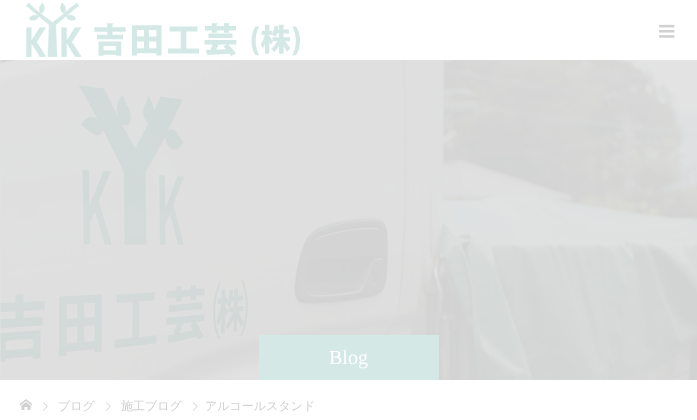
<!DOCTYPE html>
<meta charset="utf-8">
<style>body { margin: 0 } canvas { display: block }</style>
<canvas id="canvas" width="697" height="420"></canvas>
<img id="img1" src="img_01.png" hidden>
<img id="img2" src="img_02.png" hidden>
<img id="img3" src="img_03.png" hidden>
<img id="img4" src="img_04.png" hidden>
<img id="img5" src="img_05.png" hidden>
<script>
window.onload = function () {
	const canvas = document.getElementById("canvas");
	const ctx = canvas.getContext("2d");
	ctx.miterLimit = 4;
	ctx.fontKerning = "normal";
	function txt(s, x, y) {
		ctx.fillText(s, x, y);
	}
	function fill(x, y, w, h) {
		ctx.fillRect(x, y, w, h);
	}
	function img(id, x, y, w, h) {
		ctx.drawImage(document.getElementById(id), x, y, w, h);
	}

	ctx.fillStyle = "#FFFFFF";
	fill(0, 0, 697, 420);
	ctx.fillStyle = "#E3E3E3";
	fill(0, 60, 1, 320);
	img("img1", 26, 3, 274, 54);
	img("img2", 659, 24, 16, 14);
	img("img3", 0, 60, 697, 320);
	ctx.fillStyle = "#D4E9E6";
	fill(259, 335, 180, 45);
	img("img4", 20, 399, 12, 11);
	img("img5", 43, 402, 5, 9);
	img("img5", 106, 402, 5, 9);
	img("img5", 193, 402, 5, 9);
	ctx.font = "20px Liberation Serif";
	ctx.fillStyle = "#FFFFFF";
	txt("Blog", 329, 364);
	ctx.font = "500 12px WenQuanYi Zen Hei";
	ctx.fillStyle = "#D1D1D1";
	txt("ブログ", 58, 410);
	txt("施工ブログ", 121, 410);
	txt("アルコールスタンド", 205, 410);
};
</script>
